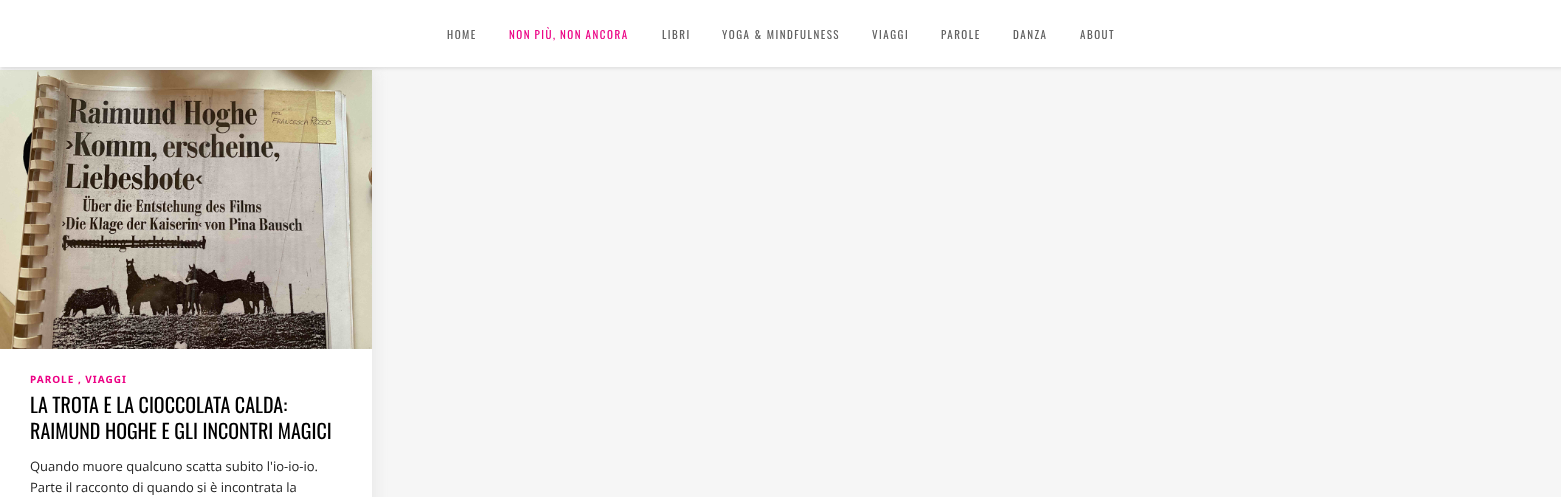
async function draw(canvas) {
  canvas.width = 1561
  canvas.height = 497
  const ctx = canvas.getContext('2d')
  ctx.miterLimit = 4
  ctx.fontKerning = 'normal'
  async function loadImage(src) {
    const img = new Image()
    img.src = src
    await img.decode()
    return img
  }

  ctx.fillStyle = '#f6f6f6'
  ctx.fillRect(0, 0, 1561, 497)
  ctx.fillStyle = '#e5e5e5'
  ctx.filter = 'blur(7.5px)'
  ctx.beginPath()
  ctx.rect(1, 72, 372, 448)
  ctx.fill()
  ctx.filter = 'none'
  ctx.drawImage(await loadImage('image0.png'), 0, 70, 372, 279)
  ctx.fillStyle = '#00000014'
  ctx.filter = 'blur(1.5px)'
  ctx.beginPath()
  ctx.rect(1, 2, 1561, 67)
  ctx.fill()
  ctx.filter = 'none'
  ctx.fillStyle = '#fff'
  ctx.fillRect(0, 0, 1561, 67)
  ctx.letterSpacing = '1.5px'
  ctx.font = '11px Oswald'
  ctx.fillStyle = '#606060'
  ctx.fillText('HOME', 447, 39)
  ctx.wordSpacing = '-0.5px'
  ctx.fillStyle = '#ec0084'
  ctx.fillText('NON PIÙ, NON ANCORA', 509, 39)
  ctx.wordSpacing = '0px'
  ctx.fillStyle = '#606060'
  ctx.fillText('LIBRI', 662, 39)
  ctx.fillText('YOGA & MINDFULNESS', 722, 39)
  ctx.fillText('VIAGGI', 872, 39)
  ctx.fillText('PAROLE', 941, 39)
  ctx.fillText('DANZA', 1013, 39)
  ctx.fillText('ABOUT', 1080, 39)
  ctx.fillStyle = '#fff'
  ctx.fillRect(0, 349, 372, 148)
  ctx.letterSpacing = '1px'
  ctx.font = 'bold 10px Noto Sans'
  ctx.fillStyle = '#ec0084'
  ctx.fillText('PAROLE , VIAGGI', 30, 383)
  ctx.letterSpacing = '0px'
  ctx.font = '20px Oswald'
  ctx.fillStyle = '#000'
  ctx.fillText('LA TROTA E LA CIOCCOLATA CALDA:', 30, 413)
  ctx.fillText('RAIMUND HOGHE E GLI INCONTRI MAGICI', 30, 439)
  ctx.font = '13px Open Sans'
  ctx.fillStyle = '#242424'
  ctx.fillText('Quando muore qualcuno scatta subito l\'io-io-io.', 30, 471)
  ctx.fillText('Parte il racconto di quando si è incontrata la', 30, 492)
}

draw(document.querySelector('canvas'))
